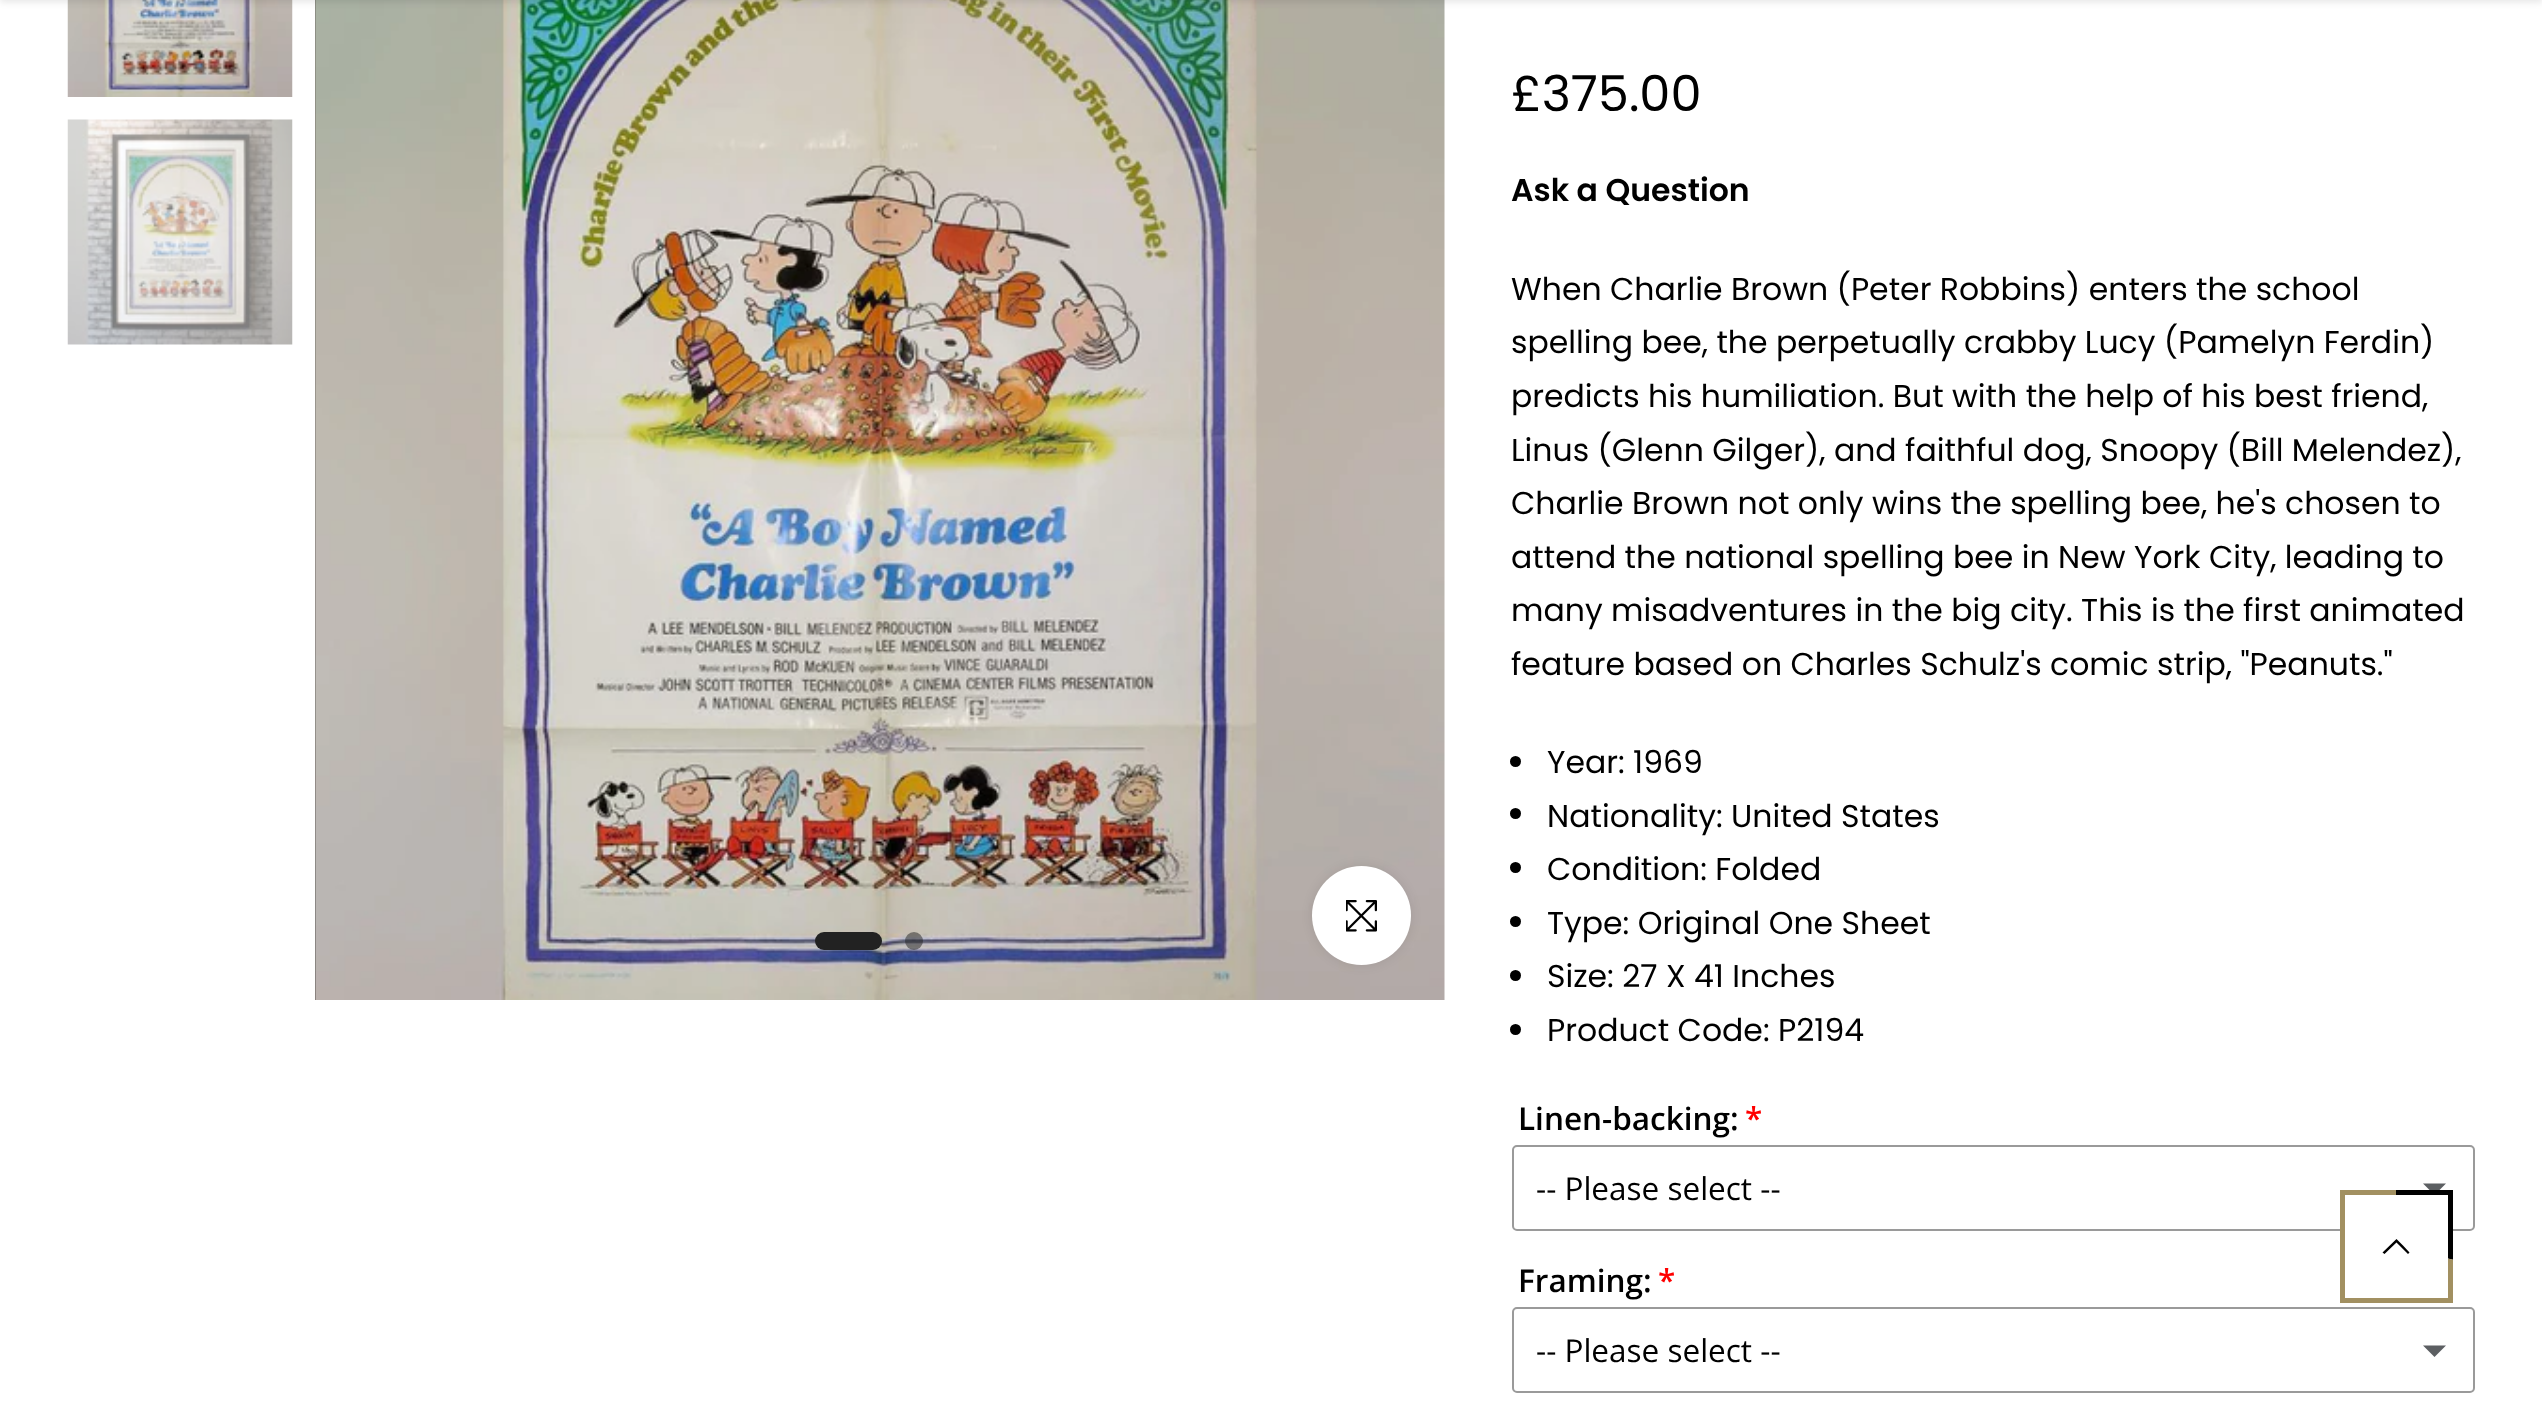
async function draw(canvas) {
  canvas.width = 2542
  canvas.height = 1426
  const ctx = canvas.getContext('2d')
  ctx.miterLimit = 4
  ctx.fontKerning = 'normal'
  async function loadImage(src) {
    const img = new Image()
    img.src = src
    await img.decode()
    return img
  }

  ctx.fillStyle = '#fff'
  ctx.fillRect(0, 0, 2542, 1426)
  ctx.drawImage(await loadImage('image0.png'), 67, 0, 226, 97)
  ctx.drawImage(await loadImage('image2.png'), 315, 0, 1130, 1000)
  ctx.drawImage(await loadImage('image3.png'), 315, 0, 1, 1000)
  ctx.fillStyle = '#0000001a'
  ctx.filter = 'blur(3.5px)'
  ctx.beginPath()
  ctx.rect(0, -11, 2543, 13)
  ctx.fill()
  ctx.filter = 'none'
  ctx.drawImage(await loadImage('image1.png'), 67, 119, 226, 226)
  ctx.fillStyle = '#222'
  ctx.beginPath()
  ctx.roundRect(815, 932, 67, 18, 9)
  ctx.fill()
  ctx.fillStyle = '#22222280'
  ctx.beginPath()
  ctx.arc(914, 941, 9, 0, 2 * Math.PI)
  ctx.fill()
  ctx.fillStyle = '#00000017'
  ctx.filter = 'blur(5.5px)'
  ctx.beginPath()
  ctx.roundRect(1312, 866, 99, 99, 49.5)
  ctx.fill()
  ctx.filter = 'none'
  ctx.fillStyle = '#fff'
  ctx.beginPath()
  ctx.arc(1361.5, 915.5, 49.5, 0, 2 * Math.PI)
  ctx.fill()
  ctx.drawImage(await loadImage('image4.png'), 1346, 900, 31, 32)
  ctx.font = '49.5px Poppins'
  ctx.fillStyle = '#000'
  ctx.fillText('£375.00', 1511, 111)
  ctx.font = '600 31.5px Poppins'
  ctx.fillText('Ask a Question', 1511, 201)
  ctx.font = '31.5px Poppins'
  ctx.fillText('When Charlie Brown (Peter Robbins) enters the school', 1511, 300)
  ctx.fillText('spelling bee, the perpetually crabby Lucy (Pamelyn Ferdin)', 1511, 353)
  ctx.fillText('predicts his humiliation. But with the help of his best friend,', 1511, 407)
  ctx.fillText('Linus (Glenn Gilger), and faithful dog, Snoopy (Bill Melendez),', 1511, 461)
  ctx.fillText('Charlie Brown not only wins the spelling bee, he\'s chosen to', 1511, 514)
  ctx.fillText('attend the national spelling bee in New York City, leading to', 1511, 568)
  ctx.fillText('many misadventures in the big city. This is the first animated', 1511, 621)
  ctx.fillText('feature based on Charles Schulz\'s comic strip, "Peanuts."', 1511, 675)
  ctx.beginPath()
  ctx.arc(1515.5, 761.5, 5.5, 0, 2 * Math.PI)
  ctx.fill()
  ctx.fillText('Year: 1969', 1547, 773)
  ctx.beginPath()
  ctx.arc(1515.5, 813.5, 5.5, 0, 2 * Math.PI)
  ctx.fill()
  ctx.fillText('Nationality: United States', 1547, 827)
  ctx.beginPath()
  ctx.arc(1515.5, 867.5, 5.5, 0, 2 * Math.PI)
  ctx.fill()
  ctx.fillText('Condition: Folded', 1547, 880)
  ctx.beginPath()
  ctx.arc(1515.5, 921.5, 5.5, 0, 2 * Math.PI)
  ctx.fill()
  ctx.fillText('Type: Original One Sheet', 1547, 934)
  ctx.beginPath()
  ctx.arc(1515.5, 975.5, 5.5, 0, 2 * Math.PI)
  ctx.fill()
  ctx.fillText('Size: 27 X 41 Inches', 1547, 987)
  ctx.beginPath()
  ctx.arc(1515.5, 1029.5, 5.5, 0, 2 * Math.PI)
  ctx.fill()
  ctx.fillText('Product Code: P2194', 1547, 1041)
  ctx.font = '600 31.5px Open Sans'
  ctx.fillText('Linen-backing:', 1518, 1130)
  ctx.fillStyle = '#f00'
  ctx.fillText('*', 1745, 1130)
  ctx.beginPath()
  ctx.roundRect(1513, 1146, 961, 84, 4)
  ctx.strokeStyle = '#9a9a9a'
  ctx.lineWidth = 2
  ctx.stroke()
  ctx.font = '31.5px Open Sans'
  ctx.fillStyle = '#000'
  ctx.fillText('-- Please select --', 1536, 1200)
  ctx.fillStyle = '#5c5f62'
  ctx.beginPath()
  ctx.moveTo(2423, 1183.5)
  ctx.lineTo(2446, 1183.5)
  ctx.lineTo(2434.5, 1195)
  ctx.closePath()
  ctx.fill()
  ctx.font = '600 31.5px Open Sans'
  ctx.fillStyle = '#000'
  ctx.fillText('Framing:', 1518, 1292)
  ctx.fillStyle = '#f00'
  ctx.fillText('*', 1658, 1292)
  ctx.beginPath()
  ctx.roundRect(1513, 1308, 961, 84, 4)
  ctx.stroke()
  ctx.font = '31.5px Open Sans'
  ctx.fillStyle = '#000'
  ctx.fillText('-- Please select --', 1536, 1362)
  ctx.fillStyle = '#5c5f62'
  ctx.beginPath()
  ctx.moveTo(2423, 1345.5)
  ctx.lineTo(2446, 1345.5)
  ctx.lineTo(2434.5, 1357)
  ctx.closePath()
  ctx.fill()
  ctx.save()
  ctx.beginPath()
  ctx.rect(2340, 1190, 113, 113)
  ctx.clip()
  ctx.fillStyle = '#000'
  ctx.beginPath()
  ctx.moveTo(2396, 1246)
  ctx.lineTo(2396, 1008)
  ctx.bezierCurveTo(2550, 1008, 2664, 1152, 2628, 1302)
  ctx.closePath()
  ctx.fill()
  ctx.fillStyle = '#a29061'
  ctx.beginPath()
  ctx.moveTo(2396, 1246)
  ctx.lineTo(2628, 1302)
  ctx.bezierCurveTo(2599, 1423, 2482, 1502, 2359, 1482)
  ctx.bezierCurveTo(2236, 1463, 2149, 1352, 2158, 1228)
  ctx.bezierCurveTo(2168, 1104, 2272, 1008, 2396, 1008)
  ctx.closePath()
  ctx.fill()
  ctx.restore()
  ctx.fillStyle = '#fff'
  ctx.fillRect(2345, 1195, 103, 103)
  ctx.fillStyle = '#000'
  ctx.beginPath()
  ctx.moveTo(2398, 1240.5)
  ctx.lineTo(2396.5, 1239)
  ctx.lineTo(2382.5, 1252.5)
  ctx.lineTo(2384.5, 1254)
  ctx.lineTo(2396.5, 1242.5)
  ctx.lineTo(2408, 1254)
  ctx.lineTo(2409.5, 1252.5)
  ctx.lineTo(2403, 1245.5)
  ctx.closePath()
  ctx.fill()
}

draw(document.querySelector('canvas'))
